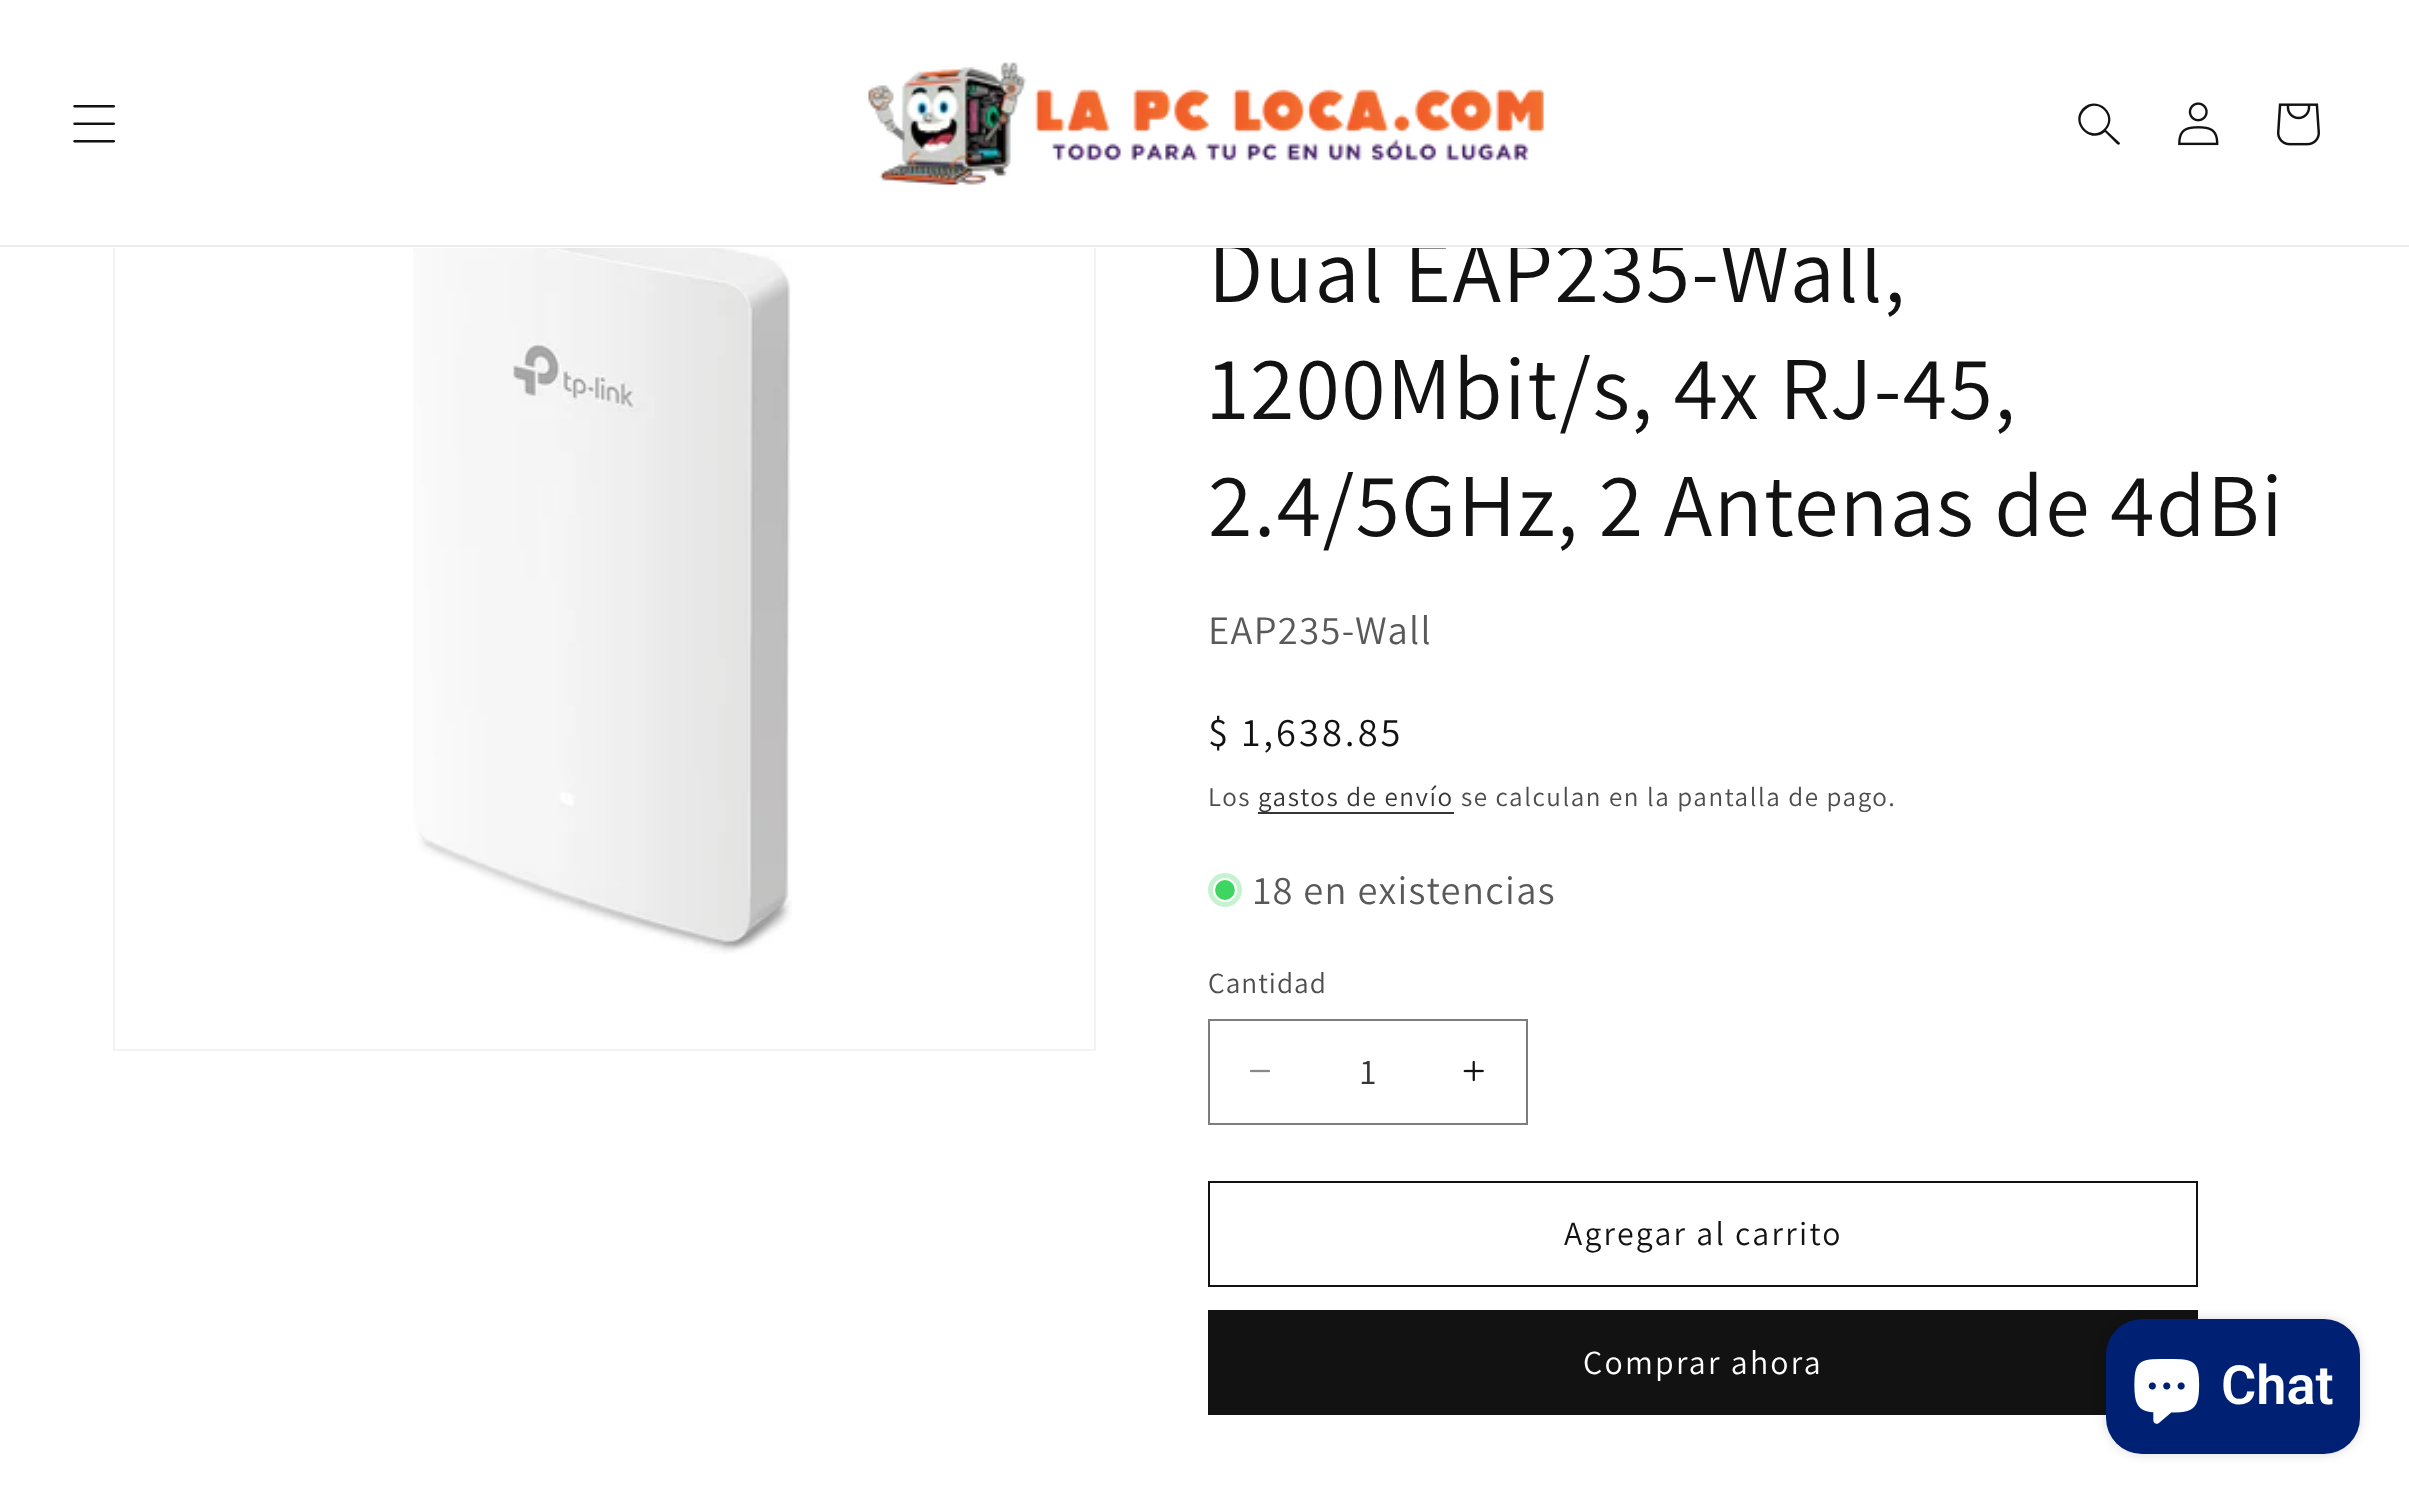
async function draw(canvas) {
  canvas.width = 2409
  canvas.height = 1500
  const ctx = canvas.getContext('2d')
  ctx.miterLimit = 4
  ctx.fontKerning = 'normal'
  async function loadImage(src) {
    const img = new Image()
    img.src = src
    await img.decode()
    return img
  }

  ctx.fillStyle = '#fff'
  ctx.fillRect(0, 0, 2409, 1500)
  ctx.strokeStyle = '#f3f3f3'
  ctx.lineWidth = 2
  ctx.strokeRect(114, 69, 981, 981)
  ctx.letterSpacing = '1.35px'
  ctx.font = '90px Assistant'
  ctx.fillStyle = '#121212'
  ctx.fillText('Dual EAP235-Wall,', 1208, 302)
  ctx.fillStyle = '#fff'
  ctx.fillRect(113, 68, 1762, 180)
  ctx.fillStyle = '#ececec'
  ctx.fillRect(0, 245, 2409, 2)
  ctx.drawImage(await loadImage('image0.png'), 73, 105, 42, 38)
  ctx.drawImage(await loadImage('image1.png'), 868, 62, 676, 123)
  ctx.fillStyle = '#121212'
  ctx.beginPath()
  ctx.moveTo(2104, 129)
  ctx.bezierCurveTo(2091, 142, 2072, 122, 2085, 110)
  ctx.bezierCurveTo(2097, 97, 2117, 116, 2104, 129)
  ctx.moveTo(2105, 132)
  ctx.bezierCurveTo(2089, 145, 2069, 122, 2083, 108)
  ctx.bezierCurveTo(2098, 94, 2120, 115, 2106, 130)
  ctx.lineTo(2120, 143)
  ctx.bezierCurveTo(2120, 145, 2118, 145, 2117, 144)
  ctx.closePath()
  ctx.fill('evenodd')
  ctx.drawImage(await loadImage('image2.png'), 2178, 102, 41, 44)
  ctx.drawImage(await loadImage('image3.png'), 2277, 103, 43, 43)
  ctx.drawImage(await loadImage('image4.png'), 413, 248, 379, 706)
  ctx.fillText('1200Mbit/s, 4x RJ-45,', 1208, 419)
  ctx.fillText('2.4/5GHz, 2 Antenas de 4dBi', 1208, 536)
  ctx.font = '40.5px Assistant'
  ctx.fillStyle = '#595959'
  ctx.fillText('EAP235-Wall', 1208, 644)
  ctx.letterSpacing = '3px'
  ctx.fillStyle = '#121212'
  ctx.fillText('$ 1,638.85', 1208, 746)
  ctx.letterSpacing = '1.55px'
  ctx.font = '27px Assistant'
  ctx.fillStyle = '#4d4d4d'
  ctx.fillText('Los', 1208, 806)
  ctx.fillStyle = '#363636'
  ctx.fillRect(1258, 812, 196, 2)
  ctx.fillText('gastos de envío', 1258, 806)
  ctx.fillStyle = '#4d4d4d'
  ctx.fillText('se calculan en la pantalla de pago.', 1461, 806)
  ctx.fillStyle = '#c5f3cf'
  ctx.beginPath()
  ctx.arc(1225, 890, 17, 0, 2 * Math.PI)
  ctx.fill()
  ctx.fillStyle = '#3ed660'
  ctx.beginPath()
  ctx.arc(1225, 890, 11, 0, 2 * Math.PI)
  ctx.fill()
  ctx.strokeStyle = '#fff'
  ctx.lineWidth = 2.2
  ctx.stroke()
  ctx.letterSpacing = '1.35px'
  ctx.font = '40.5px Assistant'
  ctx.fillStyle = '#595959'
  ctx.fillText('18 en existencias', 1253, 904)
  ctx.letterSpacing = '1px'
  ctx.font = '29.25px Assistant'
  ctx.fillStyle = '#4d4d4d'
  ctx.fillText('Cantidad', 1208, 993)
  ctx.drawImage(await loadImage('image5.png'), 1249, 1069, 21, 4)
  ctx.drawImage(await loadImage('image6.png'), 1463, 1060, 21, 22)
  ctx.strokeStyle = '#7d7d7d'
  ctx.lineWidth = 2
  ctx.strokeRect(1209, 1020, 318, 104)
  ctx.letterSpacing = '0px'
  ctx.font = '36px Assistant'
  ctx.fillStyle = '#363636'
  ctx.fillText('1', 1360, 1084)
  ctx.strokeStyle = '#121212'
  ctx.strokeRect(1209, 1182, 988, 104)
  ctx.letterSpacing = '2.25px'
  ctx.font = '33.75px Assistant'
  ctx.fillStyle = '#121212'
  ctx.fillText('Agregar al carrito', 1564, 1245)
  ctx.fillRect(1208, 1310, 990, 105)
  ctx.fillStyle = '#fff'
  ctx.fillText('Comprar ahora', 1583, 1374)
  ctx.fillStyle = '#00000026'
  ctx.filter = 'blur(5.5px)'
  ctx.beginPath()
  ctx.roundRect(2106, 1319, 254, 135, 36)
  ctx.fill()
  ctx.filter = 'none'
  ctx.fillStyle = '#002173'
  ctx.beginPath()
  ctx.roundRect(2106, 1319, 254, 135, 36)
  ctx.fill()
  ctx.drawImage(await loadImage('image7.png'), 2134, 1359, 66, 65)
  ctx.letterSpacing = '0px'
  ctx.font = '600 54px Roboto'
  ctx.fillStyle = '#fff'
  ctx.fillText('Chat', 2221, 1404)
}

draw(document.querySelector('canvas'))
